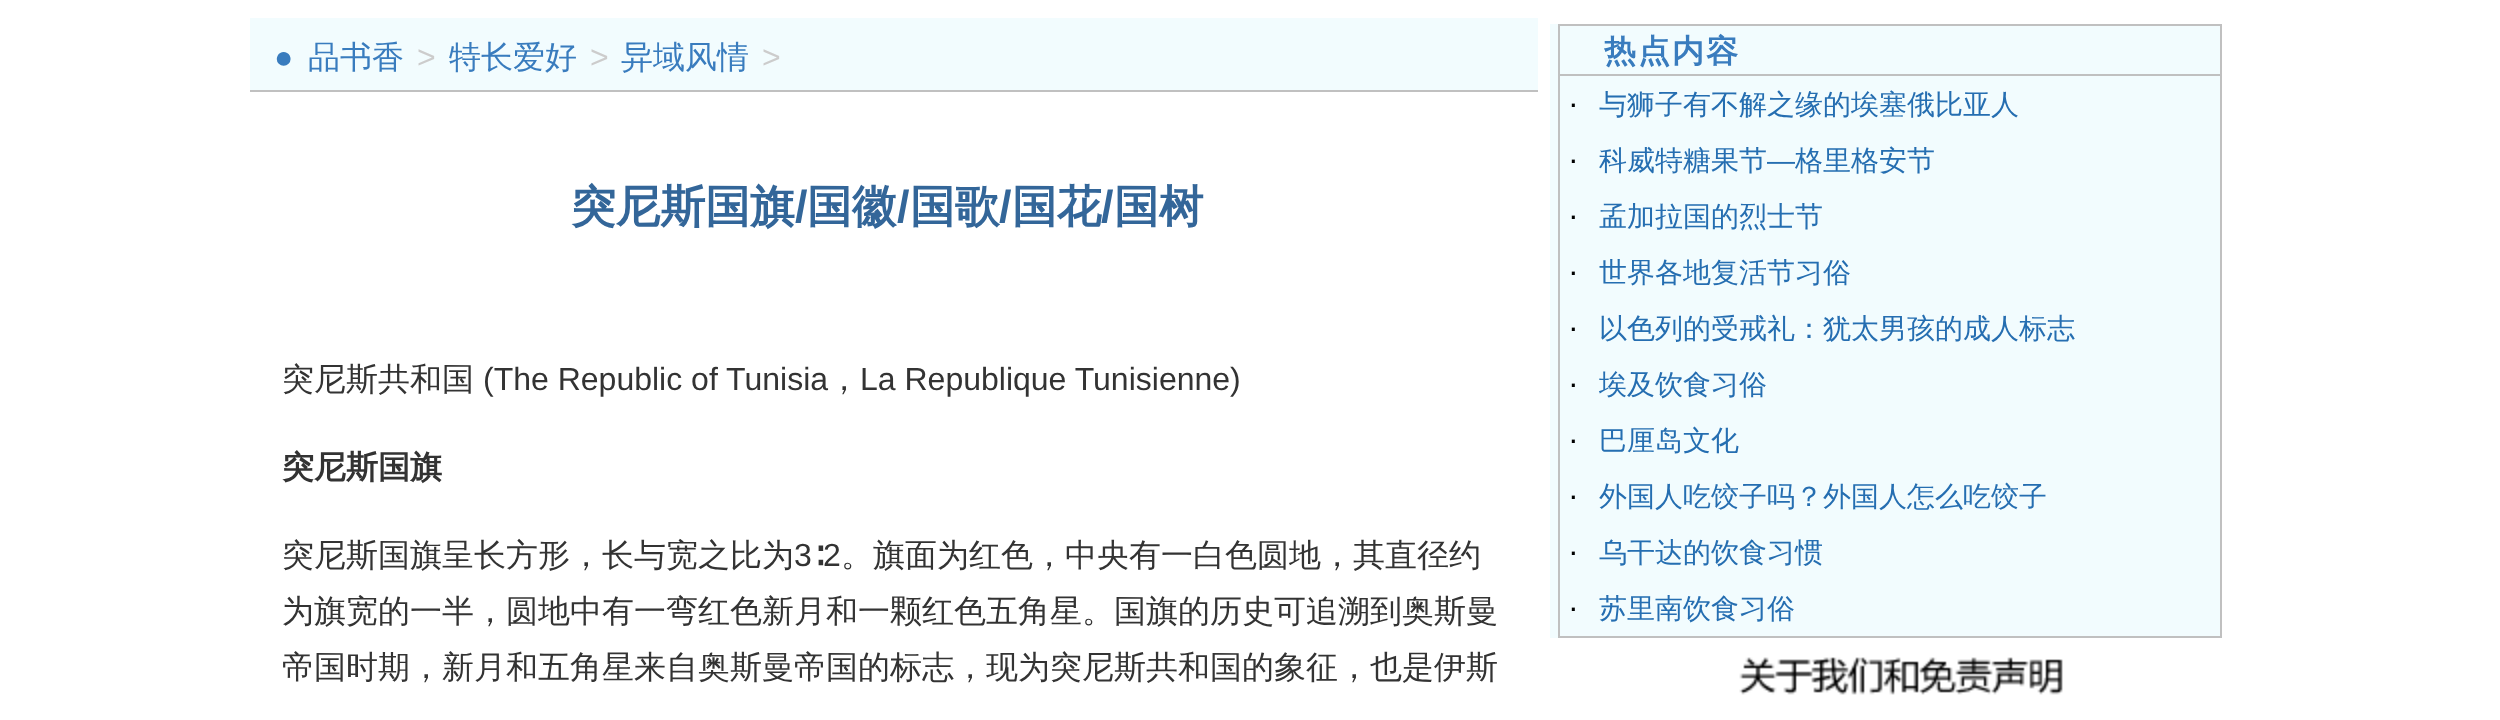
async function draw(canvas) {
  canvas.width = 2500
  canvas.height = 720
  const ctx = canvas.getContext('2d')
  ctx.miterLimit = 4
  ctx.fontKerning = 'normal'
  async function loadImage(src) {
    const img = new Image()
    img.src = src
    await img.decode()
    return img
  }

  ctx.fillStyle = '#fff'
  ctx.fillRect(0, 0, 2500, 720)
  ctx.fillStyle = '#f2fcfe'
  ctx.fillRect(250, 18, 1288, 72)
  ctx.fillStyle = '#c0c0c0'
  ctx.fillRect(250, 90, 1288, 2)
  ctx.letterSpacing = '2px'
  ctx.font = '32px Liberation Sans'
  ctx.fillStyle = '#397cbe'
  ctx.fillText('●', 274, 68)
  ctx.letterSpacing = '0px'
  ctx.font = '500 32px WenQuanYi Zen Hei'
  ctx.fillText('品书香', 308, 68)
  ctx.font = '32px Liberation Sans'
  ctx.fillStyle = '#ccc'
  ctx.fillText('>', 417, 68)
  ctx.font = '500 32px WenQuanYi Zen Hei'
  ctx.fillStyle = '#397cbe'
  ctx.fillText('特长爱好', 449, 68)
  ctx.font = '32px Liberation Sans'
  ctx.fillStyle = '#ccc'
  ctx.fillText('>', 590, 68)
  ctx.font = '500 32px WenQuanYi Zen Hei'
  ctx.fillStyle = '#397cbe'
  ctx.fillText('异域风情', 621, 68)
  ctx.font = '32px Liberation Sans'
  ctx.fillStyle = '#ccc'
  ctx.fillText('>', 762, 68)
  ctx.font = 'bold 44.75px WenQuanYi Zen Hei'
  ctx.fillStyle = '#369'
  ctx.fillText('突尼斯国旗', 571, 222)
  ctx.font = 'bold 44.75px Liberation Sans'
  ctx.fillText('/', 795, 222)
  ctx.font = 'bold 44.75px WenQuanYi Zen Hei'
  ctx.fillText('国徽', 807, 222)
  ctx.font = 'bold 44.75px Liberation Sans'
  ctx.fillText('/', 897, 222)
  ctx.font = 'bold 44.75px WenQuanYi Zen Hei'
  ctx.fillText('国歌', 910, 222)
  ctx.font = 'bold 44.75px Liberation Sans'
  ctx.fillText('/', 999, 222)
  ctx.font = 'bold 44.75px WenQuanYi Zen Hei'
  ctx.fillText('国花', 1012, 222)
  ctx.font = 'bold 44.75px Liberation Sans'
  ctx.fillText('/', 1101, 222)
  ctx.font = 'bold 44.75px WenQuanYi Zen Hei'
  ctx.fillText('国树', 1114, 222)
  ctx.font = '500 32px WenQuanYi Zen Hei'
  ctx.fillStyle = '#333'
  ctx.fillText('突尼斯共和国', 282, 390)
  ctx.font = '32px Liberation Sans'
  ctx.fillText('(The Republic of Tunisia', 483, 390)
  ctx.font = '500 32px WenQuanYi Zen Hei'
  ctx.fillText('，', 828, 390)
  ctx.font = '32px Liberation Sans'
  ctx.fillText('La Republique Tunisienne)', 860, 390)
  ctx.font = 'bold 32px WenQuanYi Zen Hei'
  ctx.fillText('突尼斯国旗', 282, 478)
  ctx.font = '500 32px WenQuanYi Zen Hei'
  ctx.fillText('突尼斯国旗呈长方形，长与宽之比为', 282, 566)
  ctx.font = '32px Liberation Sans'
  ctx.fillText('3', 794, 566)
  ctx.font = '500 32px WenQuanYi Zen Hei'
  ctx.fillText('∶', 812, 566)
  ctx.font = '32px Liberation Sans'
  ctx.fillText('2', 823, 566)
  ctx.font = '500 32px WenQuanYi Zen Hei'
  ctx.fillText('。旗面为红色，中央有一白色圆地，其直径约', 841, 566)
  ctx.fillText('为旗宽的一半，圆地中有一弯红色新月和一颗红色五角星。国旗的历史可追溯到奥斯曼', 282, 622)
  ctx.fillText('帝国时期，新月和五角星来自奥斯曼帝国的标志，现为突尼斯共和国的象征，也是伊斯', 282, 678)
  ctx.fillStyle = '#f2fcfe'
  ctx.fillRect(1550, 24, 670, 614)
  ctx.strokeStyle = '#c0c0c0'
  ctx.lineWidth = 2
  ctx.strokeRect(1559, 25, 662, 50)
  ctx.letterSpacing = '2px'
  ctx.font = 'bold 32px WenQuanYi Zen Hei'
  ctx.fillStyle = '#397cbe'
  ctx.fillText('热点内容', 1604, 62)
  ctx.fillStyle = '#c0c0c0'
  ctx.fillRect(2220, 76, 2, 562)
  ctx.fillRect(1558, 636, 664, 2)
  ctx.fillRect(1558, 76, 2, 562)
  ctx.letterSpacing = '0px'
  ctx.font = '32px Liberation Sans'
  ctx.fillStyle = '#000'
  ctx.fillText('·', 1568, 114)
  ctx.font = '500 28px WenQuanYi Zen Hei'
  ctx.fillStyle = '#256eb1'
  ctx.fillText('与狮子有不解之缘的埃塞俄比亚人', 1599, 114)
  ctx.font = '32px Liberation Sans'
  ctx.fillStyle = '#000'
  ctx.fillText('·', 1568, 170)
  ctx.font = '500 28px WenQuanYi Zen Hei'
  ctx.fillStyle = '#256eb1'
  ctx.fillText('科威特糖果节', 1599, 170)
  ctx.font = '28px Liberation Sans'
  ctx.fillText('—', 1767, 170)
  ctx.font = '500 28px WenQuanYi Zen Hei'
  ctx.fillText('格里格安节', 1795, 170)
  ctx.font = '32px Liberation Sans'
  ctx.fillStyle = '#000'
  ctx.fillText('·', 1568, 226)
  ctx.font = '500 28px WenQuanYi Zen Hei'
  ctx.fillStyle = '#256eb1'
  ctx.fillText('孟加拉国的烈士节', 1599, 226)
  ctx.font = '32px Liberation Sans'
  ctx.fillStyle = '#000'
  ctx.fillText('·', 1568, 282)
  ctx.font = '500 28px WenQuanYi Zen Hei'
  ctx.fillStyle = '#256eb1'
  ctx.fillText('世界各地复活节习俗', 1599, 282)
  ctx.font = '32px Liberation Sans'
  ctx.fillStyle = '#000'
  ctx.fillText('·', 1568, 338)
  ctx.font = '500 28px WenQuanYi Zen Hei'
  ctx.fillStyle = '#256eb1'
  ctx.fillText('以色列的受戒礼：犹太男孩的成人标志', 1599, 338)
  ctx.font = '32px Liberation Sans'
  ctx.fillStyle = '#000'
  ctx.fillText('·', 1568, 394)
  ctx.font = '500 28px WenQuanYi Zen Hei'
  ctx.fillStyle = '#256eb1'
  ctx.fillText('埃及饮食习俗', 1599, 394)
  ctx.font = '32px Liberation Sans'
  ctx.fillStyle = '#000'
  ctx.fillText('·', 1568, 450)
  ctx.font = '500 28px WenQuanYi Zen Hei'
  ctx.fillStyle = '#256eb1'
  ctx.fillText('巴厘岛文化', 1599, 450)
  ctx.font = '32px Liberation Sans'
  ctx.fillStyle = '#000'
  ctx.fillText('·', 1568, 506)
  ctx.font = '500 28px WenQuanYi Zen Hei'
  ctx.fillStyle = '#256eb1'
  ctx.fillText('外国人吃饺子吗？外国人怎么吃饺子', 1599, 506)
  ctx.font = '32px Liberation Sans'
  ctx.fillStyle = '#000'
  ctx.fillText('·', 1568, 562)
  ctx.font = '500 28px WenQuanYi Zen Hei'
  ctx.fillStyle = '#256eb1'
  ctx.fillText('乌干达的饮食习惯', 1599, 562)
  ctx.font = '32px Liberation Sans'
  ctx.fillStyle = '#000'
  ctx.fillText('·', 1568, 618)
  ctx.font = '500 28px WenQuanYi Zen Hei'
  ctx.fillStyle = '#256eb1'
  ctx.fillText('苏里南饮食习俗', 1599, 618)
  ctx.drawImage(await loadImage('image0.png'), 1739, 657, 324, 38)
}

draw(document.querySelector('canvas'))
